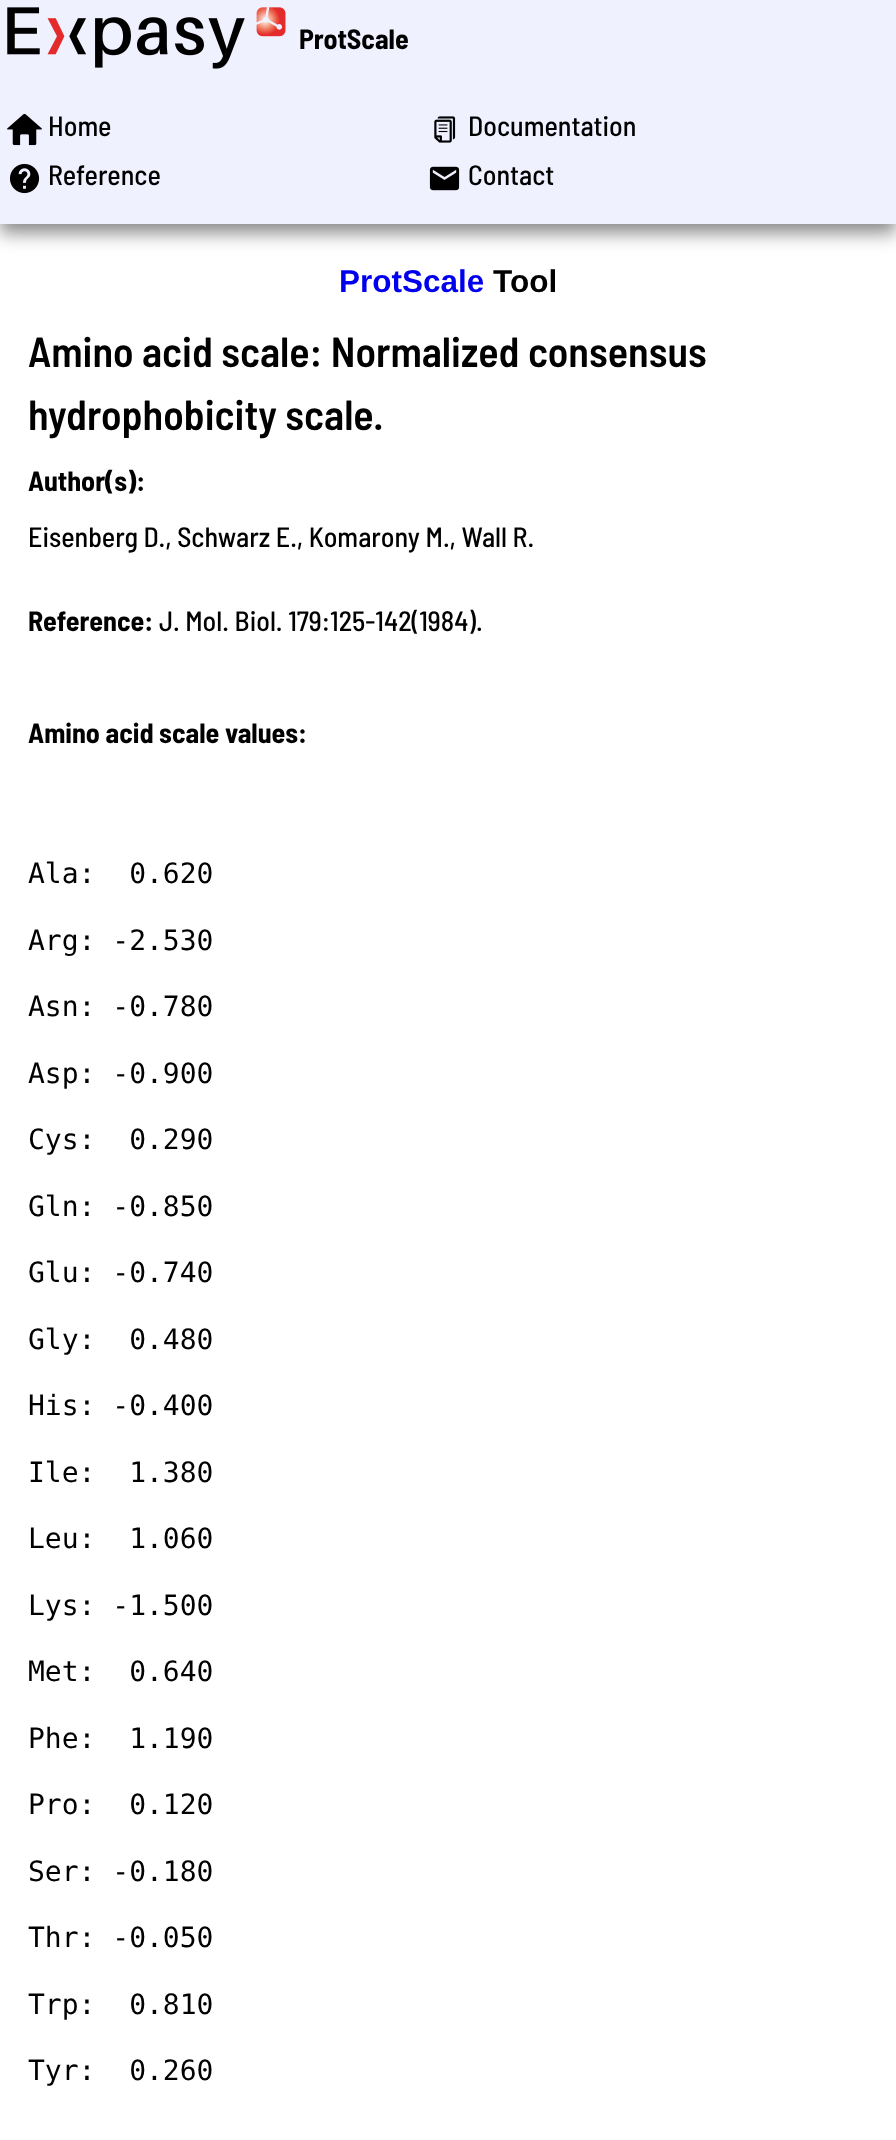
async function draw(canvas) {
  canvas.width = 896
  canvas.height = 2140
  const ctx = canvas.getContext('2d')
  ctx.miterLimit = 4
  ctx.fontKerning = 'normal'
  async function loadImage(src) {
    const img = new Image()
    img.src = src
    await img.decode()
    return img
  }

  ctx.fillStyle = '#fff'
  ctx.fillRect(0, 0, 896, 2140)
  ctx.fillStyle = '#888'
  ctx.filter = 'blur(9px)'
  ctx.beginPath()
  ctx.rect(0, 9, 896, 224)
  ctx.fill()
  ctx.filter = 'none'
  ctx.fillStyle = '#f0f1ff'
  ctx.fillRect(0, 0, 896, 224)
  ctx.drawImage(await loadImage('image0.png'), 7, 7, 279, 62)
  ctx.font = 'bold 28px Barlow Semi Condensed'
  ctx.fillStyle = '#000'
  ctx.fillText('ProtScale', 299, 49)
  ctx.drawImage(await loadImage('image1.png'), 7, 114, 35, 32)
  ctx.font = '500 28px Barlow Semi Condensed'
  ctx.fillText('Home', 48, 136)
  ctx.drawImage(await loadImage('image2.png'), 434, 116, 22, 27)
  ctx.fillText('Documentation', 468, 136)
  ctx.drawImage(await loadImage('image3.png'), 9, 163, 31, 31)
  ctx.fillText('Reference', 48, 185)
  ctx.drawImage(await loadImage('image4.png'), 429, 166, 31, 25)
  ctx.fillText('Contact', 468, 185)
  ctx.font = 'bold 31.5px Liberation Sans'
  ctx.fillStyle = '#00e'
  ctx.fillText('ProtScale', 339, 292)
  ctx.fillStyle = '#000'
  ctx.fillText('Tool', 493, 292)
  ctx.font = '600 42px Barlow Semi Condensed'
  ctx.fillText('Amino acid scale: Normalized consensus', 28, 367)
  ctx.fillText('hydrophobicity scale.', 28, 430)
  ctx.font = 'bold 28px Barlow Semi Condensed'
  ctx.fillText('Author(s):', 28, 491)
  ctx.font = '500 28px Barlow Semi Condensed'
  ctx.fillText('Eisenberg D., Schwarz E., Komarony M., Wall R.', 28, 547)
  ctx.font = 'bold 28px Barlow Semi Condensed'
  ctx.fillText('Reference:', 28, 631)
  ctx.font = '500 28px Barlow Semi Condensed'
  ctx.fillText('J. Mol. Biol. 179:125-142(1984).', 159, 631)
  ctx.font = 'bold 28px Barlow Semi Condensed'
  ctx.fillText('Amino acid scale values:', 28, 743)
  ctx.font = '28px DejaVu Sans Mono'
  ctx.fillText('Ala:  0.620', 28, 883)
  ctx.fillText('Arg: -2.530', 28, 950)
  ctx.fillText('Asn: -0.780', 28, 1016)
  ctx.fillText('Asp: -0.900', 28, 1083)
  ctx.fillText('Cys:  0.290', 28, 1149)
  ctx.fillText('Gln: -0.850', 28, 1216)
  ctx.fillText('Glu: -0.740', 28, 1282)
  ctx.fillText('Gly:  0.480', 28, 1349)
  ctx.fillText('His: -0.400', 28, 1415)
  ctx.fillText('Ile:  1.380', 28, 1482)
  ctx.fillText('Leu:  1.060', 28, 1548)
  ctx.fillText('Lys: -1.500', 28, 1615)
  ctx.fillText('Met:  0.640', 28, 1681)
  ctx.fillText('Phe:  1.190', 28, 1748)
  ctx.fillText('Pro:  0.120', 28, 1814)
  ctx.fillText('Ser: -0.180', 28, 1881)
  ctx.fillText('Thr: -0.050', 28, 1947)
  ctx.fillText('Trp:  0.810', 28, 2014)
  ctx.fillText('Tyr:  0.260', 28, 2080)
}

draw(document.querySelector('canvas'))
